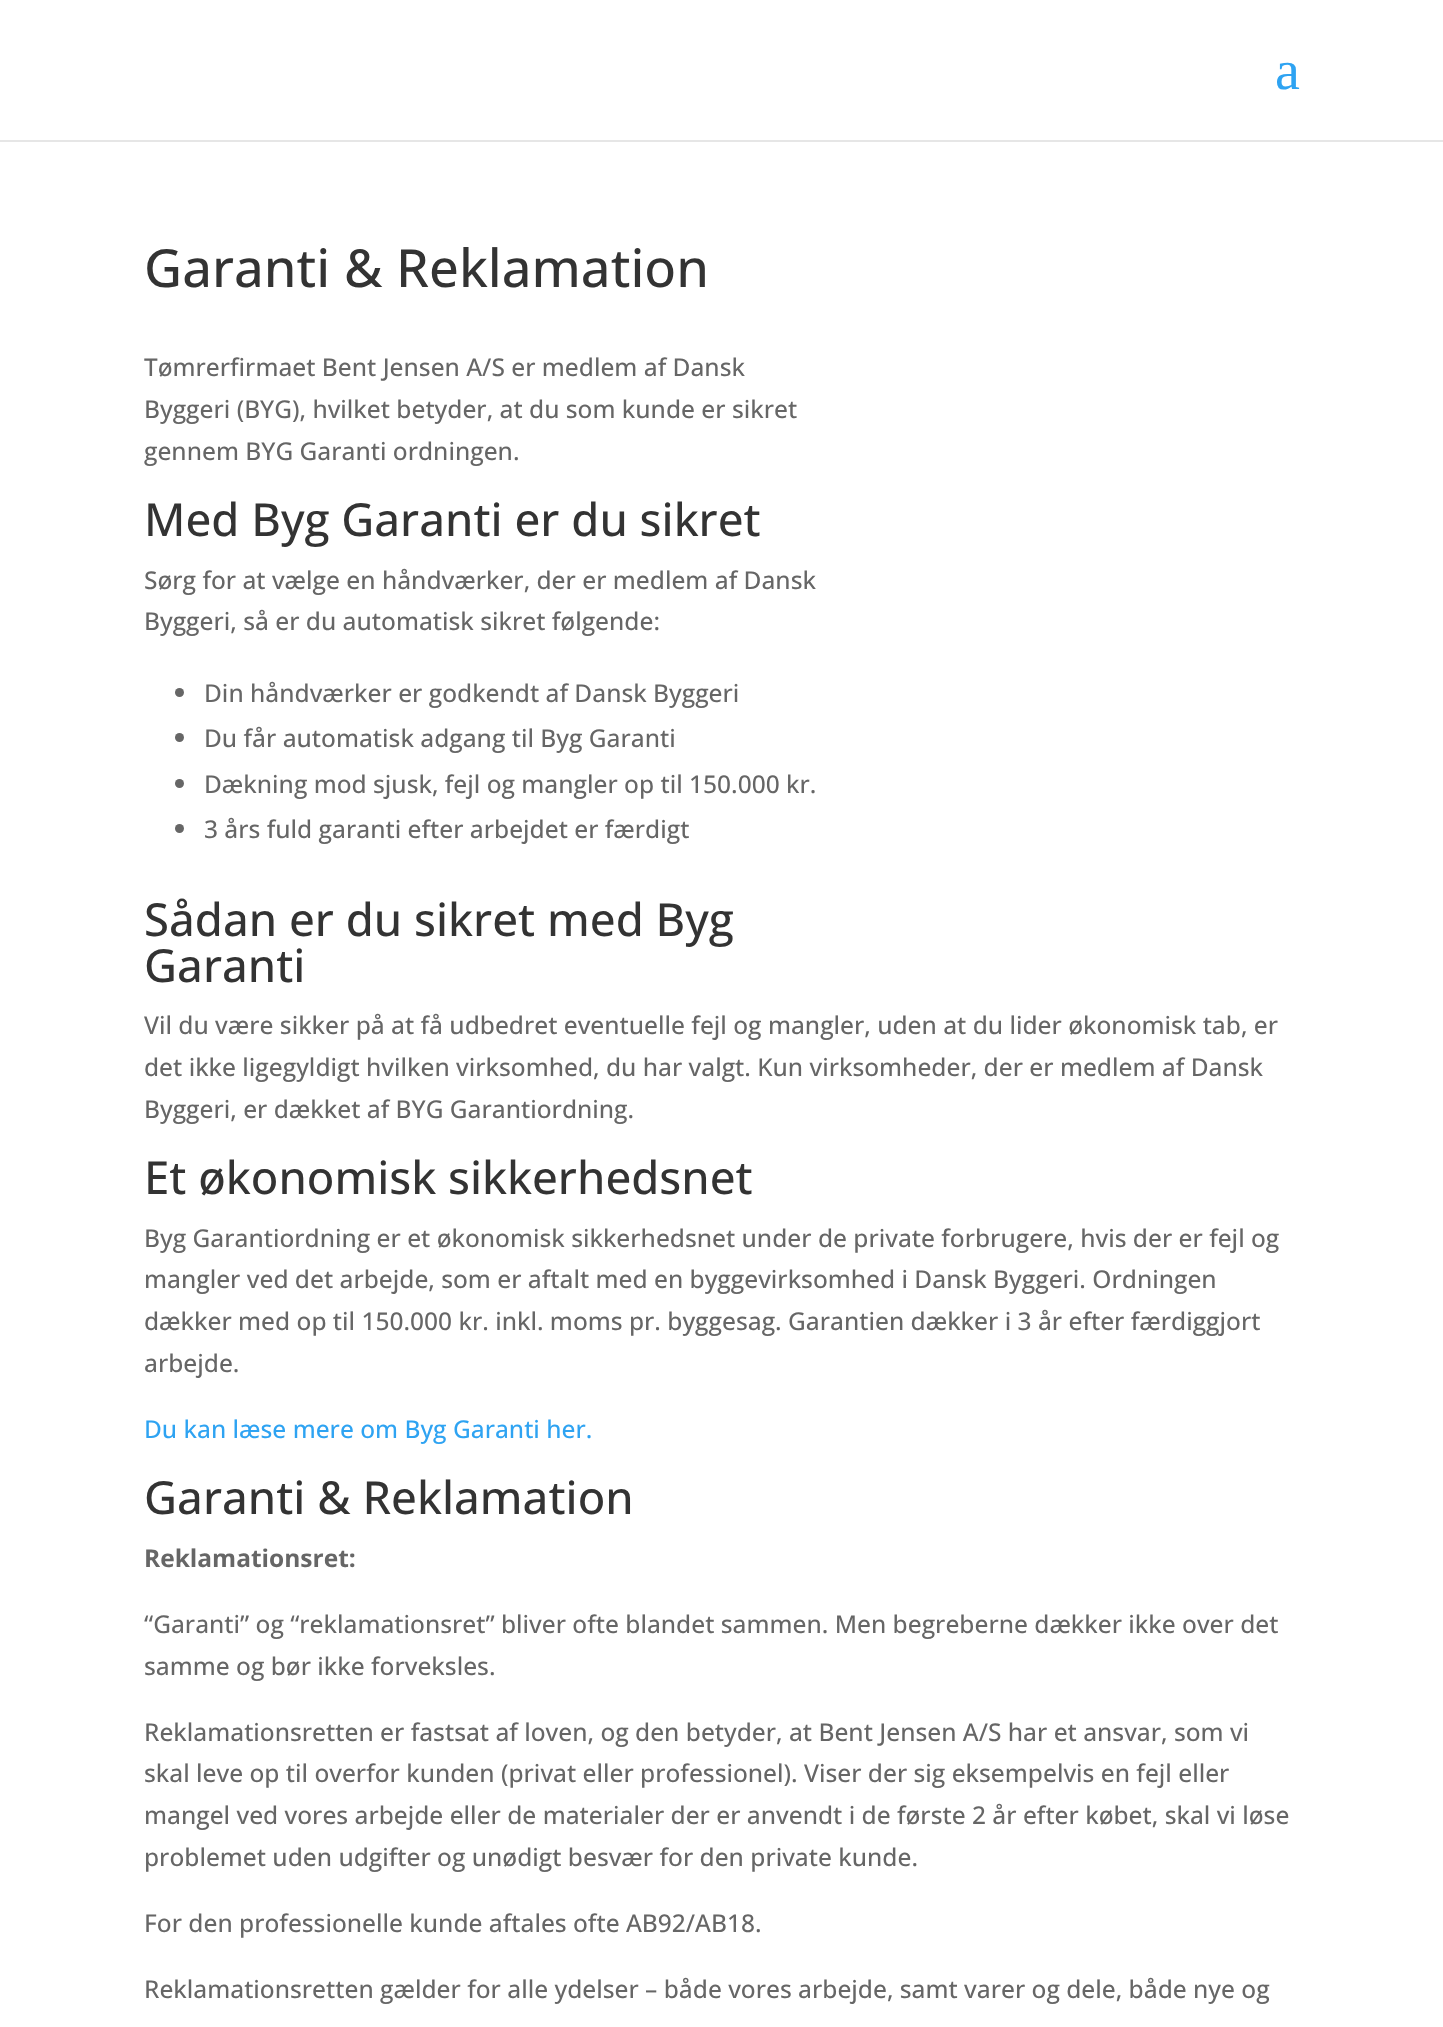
async function draw(canvas) {
  canvas.width = 1443
  canvas.height = 2027
  const ctx = canvas.getContext('2d')
  ctx.miterLimit = 4
  ctx.fontKerning = 'normal'

  ctx.fillStyle = '#fff'
  ctx.fillRect(0, 0, 1443, 2027)
  ctx.fillStyle = '#e6e6e6'
  ctx.beginPath()
  ctx.moveTo(0, 140)
  ctx.lineTo(0, 142)
  ctx.lineTo(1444, 142)
  ctx.lineTo(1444, 2)
  ctx.lineTo(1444, 140)
  ctx.closePath()
  ctx.fill()
  ctx.font = '56px Liberation Serif'
  ctx.fillStyle = '#2ea3f2'
  ctx.fillText('a', 1275, 89)
  ctx.font = '500 52.5px Open Sans'
  ctx.fillStyle = '#333'
  ctx.fillText('Garanti & Reklamation', 144, 287)
  ctx.font = '500 24.5px Open Sans'
  ctx.fillStyle = '#666'
  ctx.fillText('Tømrerfirmaet Bent Jensen A/S er medlem af Dansk', 144, 376)
  ctx.fillText('Byggeri (BYG), hvilket betyder, at du som kunde er sikret', 144, 418)
  ctx.fillText('gennem BYG Garanti ordningen.', 144, 460)
  ctx.font = '500 45.5px Open Sans'
  ctx.fillStyle = '#333'
  ctx.fillText('Med Byg Garanti er du sikret', 144, 536)
  ctx.font = '500 24.5px Open Sans'
  ctx.fillStyle = '#666'
  ctx.fillText('Sørg for at vælge en håndværker, der er medlem af Dansk', 144, 589)
  ctx.fillText('Byggeri, så er du automatisk sikret følgende:', 144, 630)
  ctx.beginPath()
  ctx.arc(179.5, 692.5, 4.5, 0, 2 * Math.PI)
  ctx.fill()
  ctx.fillText('Din håndværker er godkendt af Dansk Byggeri', 204, 702)
  ctx.beginPath()
  ctx.arc(179.5, 737.5, 4.5, 0, 2 * Math.PI)
  ctx.fill()
  ctx.fillText('Du får automatisk adgang til Byg Garanti', 204, 747)
  ctx.beginPath()
  ctx.arc(179.5, 783.5, 4.5, 0, 2 * Math.PI)
  ctx.fill()
  ctx.fillText('Dækning mod sjusk, fejl og mangler op til 150.000 kr.', 204, 793)
  ctx.beginPath()
  ctx.arc(179.5, 828.5, 4.5, 0, 2 * Math.PI)
  ctx.fill()
  ctx.fillText('3 års fuld garanti efter arbejdet er færdigt', 204, 838)
  ctx.font = '500 45.5px Open Sans'
  ctx.fillStyle = '#333'
  ctx.fillText('Sådan er du sikret med Byg', 144, 936)
  ctx.fillText('Garanti', 144, 982)
  ctx.font = '500 24.5px Open Sans'
  ctx.fillStyle = '#666'
  ctx.fillText('Vil du være sikker på at få udbedret eventuelle fejl og mangler, uden at du lider økonomisk tab, er', 144, 1034)
  ctx.fillText('det ikke ligegyldigt hvilken virksomhed, du har valgt. Kun virksomheder, der er medlem af Dansk', 144, 1076)
  ctx.fillText('Byggeri, er dækket af BYG Garantiordning.', 144, 1118)
  ctx.font = '500 45.5px Open Sans'
  ctx.fillStyle = '#333'
  ctx.fillText('Et økonomisk sikkerhedsnet', 144, 1194)
  ctx.font = '500 24.5px Open Sans'
  ctx.fillStyle = '#666'
  ctx.fillText('Byg Garantiordning er et økonomisk sikkerhedsnet under de private forbrugere, hvis der er fejl og', 144, 1247)
  ctx.fillText('mangler ved det arbejde, som er aftalt med en byggevirksomhed i Dansk Byggeri. Ordningen', 144, 1288)
  ctx.fillText('dækker med op til 150.000 kr. inkl. moms pr. byggesag. Garantien dækker i 3 år efter færdiggjort', 144, 1330)
  ctx.fillText('arbejde.', 144, 1372)
  ctx.fillStyle = '#2ea3f2'
  ctx.fillText('Du kan læse mere om Byg Garanti her.', 144, 1438)
  ctx.font = '500 45.5px Open Sans'
  ctx.fillStyle = '#333'
  ctx.fillText('Garanti & Reklamation', 144, 1514)
  ctx.font = 'bold 24.5px Open Sans'
  ctx.fillStyle = '#666'
  ctx.fillText('Reklamationsret:', 144, 1567)
  ctx.font = '500 24.5px Open Sans'
  ctx.fillText('“Garanti” og “reklamationsret” bliver ofte blandet sammen. Men begreberne dækker ikke over det', 144, 1633)
  ctx.fillText('samme og bør ikke forveksles.', 144, 1675)
  ctx.fillText('Reklamationsretten er fastsat af loven, og den betyder, at Bent Jensen A/S har et ansvar, som vi', 144, 1741)
  ctx.fillText('skal leve op til overfor kunden (privat eller professionel). Viser der sig eksempelvis en fejl eller', 144, 1782)
  ctx.fillText('mangel ved vores arbejde eller de materialer der er anvendt i de første 2 år efter købet, skal vi løse', 144, 1824)
  ctx.fillText('problemet uden udgifter og unødigt besvær for den private kunde.', 144, 1866)
  ctx.fillText('For den professionelle kunde aftales ofte AB92/AB18.', 144, 1932)
  ctx.fillText('Reklamationsretten gælder for alle ydelser – både vores arbejde, samt varer og dele, både nye og', 144, 1998)
}

draw(document.querySelector('canvas'))
